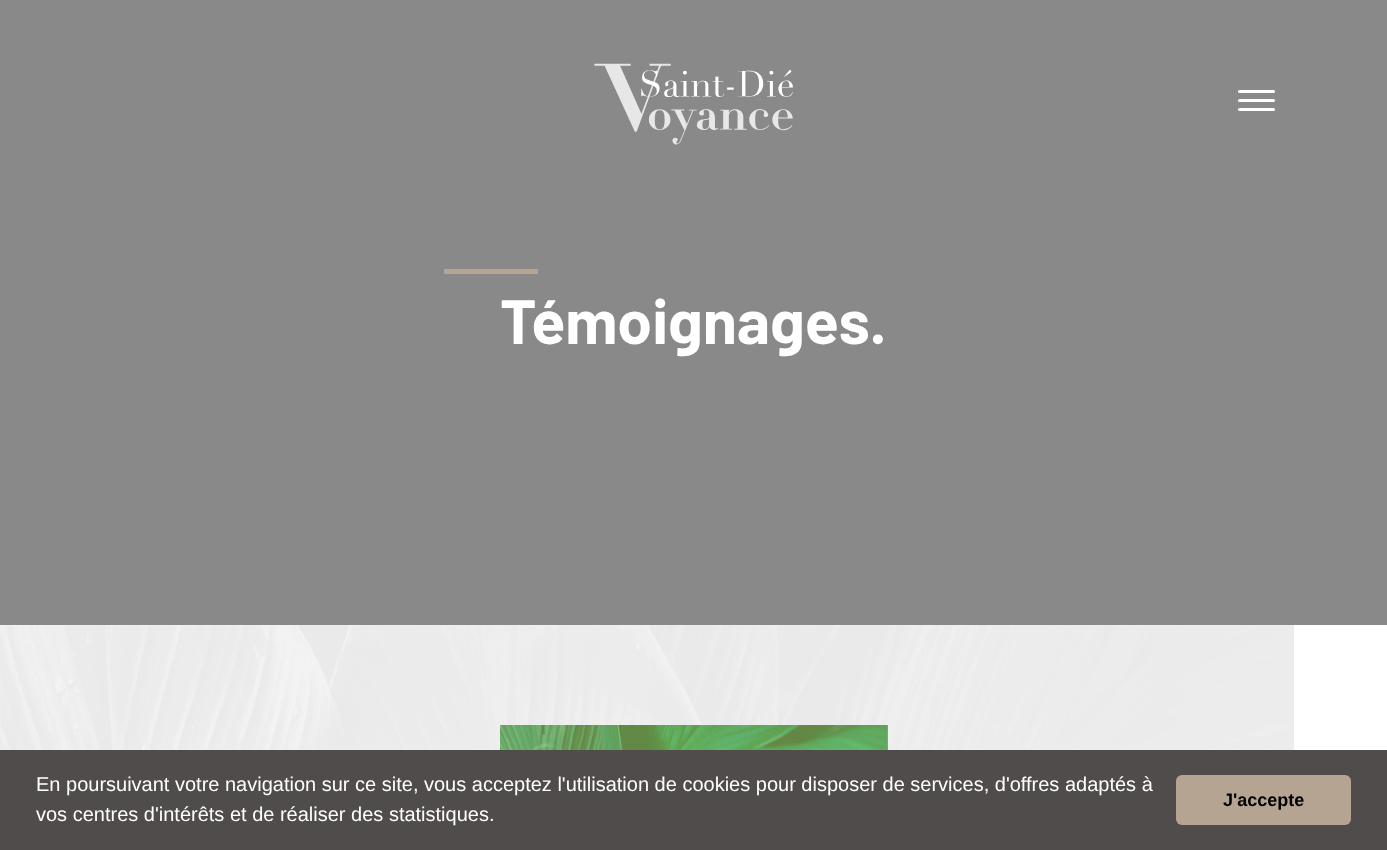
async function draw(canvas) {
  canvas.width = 1387
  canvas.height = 850
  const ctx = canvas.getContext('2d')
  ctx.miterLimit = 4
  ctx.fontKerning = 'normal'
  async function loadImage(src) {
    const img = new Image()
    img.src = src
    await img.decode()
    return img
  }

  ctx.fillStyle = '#fff'
  ctx.fillRect(0, 0, 1387, 850)
  ctx.fillStyle = '#898989'
  ctx.fillRect(0, 0, 1387, 625)
  ctx.drawImage(await loadImage('image0.png'), 594, 63, 199, 82)
  ctx.fillStyle = '#fff'
  ctx.beginPath()
  ctx.roundRect(1238, 90, 37, 3, 1.5)
  ctx.fill()
  ctx.beginPath()
  ctx.roundRect(1238, 99, 37, 3, 1.5)
  ctx.fill()
  ctx.beginPath()
  ctx.roundRect(1238, 108, 37, 3, 1.5)
  ctx.fill()
  ctx.fillStyle = '#b5a491'
  ctx.fillRect(444, 269, 94, 5)
  ctx.font = 'bold 62.5px Barlow'
  ctx.fillStyle = '#fff'
  ctx.fillText('Témoignages.', 500, 344)
  ctx.drawImage(await loadImage('image1.png'), 0, 625, 1294, 125)
  ctx.fillStyle = '#8aba57'
  ctx.fillRect(887, 725, 1, 25)
  ctx.drawImage(await loadImage('image2.png'), 500, 725, 388, 25)
  ctx.fillStyle = '#504c4c'
  ctx.fillRect(0, 750, 1387, 100)
  ctx.font = '20px Liberation Sans'
  ctx.fillStyle = '#fff'
  ctx.fillText('En poursuivant votre navigation sur ce site, vous acceptez l\'utilisation de cookies pour disposer de services, d\'offres adaptés à', 36, 791)
  ctx.fillText('vos centres d\'intérêts et de réaliser des statistiques.', 36, 821)
  ctx.fillStyle = '#b5a491'
  ctx.beginPath()
  ctx.roundRect(1176, 775, 175, 50, 6)
  ctx.fill()
  ctx.font = 'bold 18px Liberation Sans'
  ctx.fillStyle = '#000'
  ctx.fillText('J\'accepte', 1223, 806)
}

draw(document.querySelector('canvas'))
